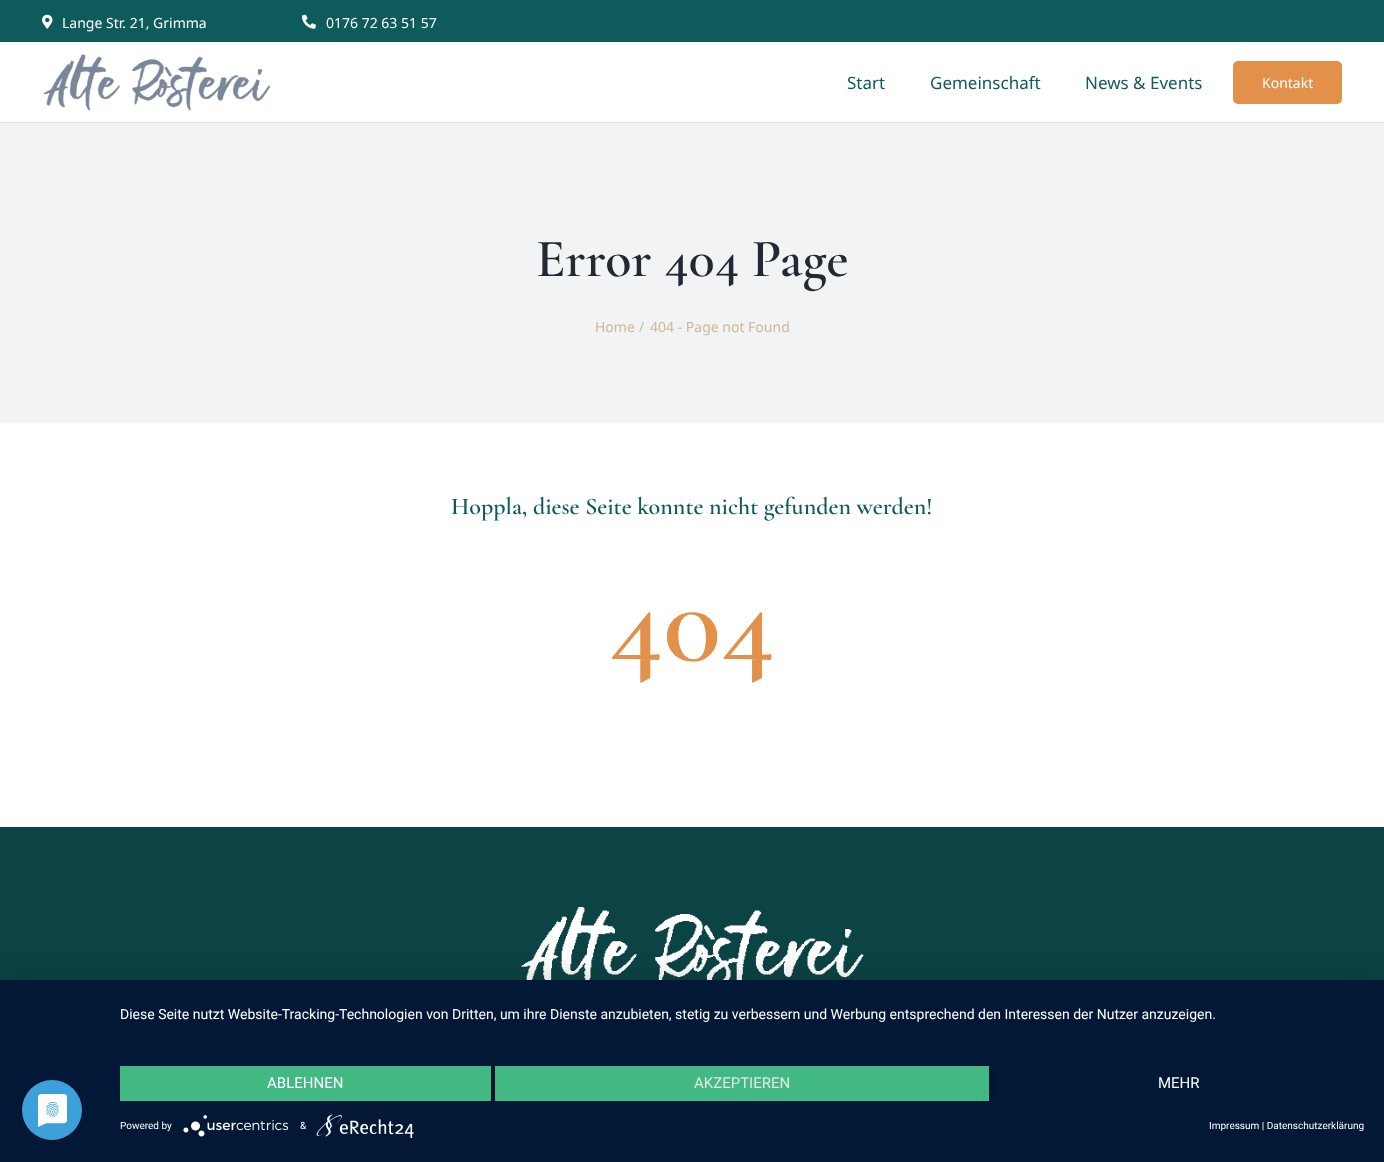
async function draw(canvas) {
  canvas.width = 1384
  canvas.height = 1162
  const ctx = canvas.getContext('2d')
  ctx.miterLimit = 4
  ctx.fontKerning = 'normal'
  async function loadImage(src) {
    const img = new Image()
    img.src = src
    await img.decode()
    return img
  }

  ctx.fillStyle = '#fff'
  ctx.fillRect(0, 0, 1384, 1162)
  ctx.fillStyle = '#0e5b5c'
  ctx.fillRect(0, 0, 1384, 42)
  ctx.drawImage(await loadImage('image0.png'), 42, 14, 11, 15)
  ctx.font = '14px Noto Sans'
  ctx.fillStyle = '#fff'
  ctx.fillText('Lange Str. 21, Grimma', 62, 28)
  ctx.drawImage(await loadImage('image1.png'), 302, 14, 14, 15)
  ctx.fillText('0176 72 63 51 57', 326, 28)
  ctx.fillStyle = '#e2e2e2'
  ctx.fillRect(0, 122, 1384, 1)
  ctx.drawImage(await loadImage('image2.png'), 43, 54, 228, 57)
  ctx.font = '17px Noto Sans'
  ctx.fillStyle = '#0e5b5c'
  ctx.fillText('Start', 847, 89)
  ctx.fillText('Gemeinschaft', 930, 89)
  ctx.fillText('News & Events', 1085, 89)
  ctx.fillStyle = '#e2904a'
  ctx.beginPath()
  ctx.roundRect(1233, 61, 109, 43, 5)
  ctx.fill()
  ctx.font = '14px Noto Sans'
  ctx.fillStyle = '#fff'
  ctx.fillText('Kontakt', 1262, 88)
  ctx.fillStyle = '#f2f3f5'
  ctx.fillRect(0, 123, 1384, 300)
  ctx.font = '600 54px Cormorant Garamond'
  ctx.fillStyle = '#212934'
  ctx.fillText('Error 404 Page', 536, 276)
  ctx.font = '14px Noto Sans'
  ctx.fillStyle = '#cbb994'
  ctx.fillText('Home', 595, 332)
  ctx.fillText('/', 639, 332)
  ctx.fillText('404 - Page not Found', 650, 332)
  ctx.font = '600 24px Cormorant Garamond'
  ctx.fillStyle = '#0e5b5c'
  ctx.fillText('Hoppla, diese Seite konnte nicht gefunden werden!', 451, 514)
  ctx.font = '600 120px Cormorant Garamond'
  ctx.fillStyle = '#e2904a'
  ctx.fillText('404', 609, 660)
  ctx.fillStyle = '#0c4445'
  ctx.fillRect(0, 827, 1384, 153)
  ctx.drawImage(await loadImage('image3.png'), 521, 907, 343, 73)
  ctx.fillStyle = '#0000004d'
  ctx.filter = 'blur(18px)'
  ctx.beginPath()
  ctx.rect(0, 986, 1384, 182)
  ctx.fill()
  ctx.filter = 'none'
  ctx.fillStyle = '#021836'
  ctx.fillRect(0, 980, 1384, 182)
  ctx.drawImage(await loadImage('image4.png'), 21, 1079, 62, 62)
  ctx.font = '14px Roboto'
  ctx.fillStyle = '#fff'
  ctx.fillText('Diese Seite nutzt Website-Tracking-Technologien von Dritten, um ihre Dienste anzubieten, stetig zu verbessern und Werbung entsprechend den Interessen der Nutzer anzuzeigen.', 120, 1019)
  ctx.save()
  ctx.beginPath()
  ctx.rect(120, 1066, 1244, 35)
  ctx.clip()
  ctx.fillStyle = '#00000066'
  ctx.filter = 'blur(2px)'
  ctx.beginPath()
  ctx.rect(120, 1067, 371, 35)
  ctx.fill()
  ctx.filter = 'none'
  ctx.restore()
  ctx.fillStyle = '#42b983'
  ctx.fillRect(120, 1066, 371, 35)
  ctx.font = '15px Roboto'
  ctx.fillStyle = '#fff'
  ctx.fillText('ABLEHNEN', 267, 1088)
  ctx.save()
  ctx.beginPath()
  ctx.rect(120, 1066, 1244, 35)
  ctx.clip()
  ctx.fillStyle = '#00000066'
  ctx.filter = 'blur(2px)'
  ctx.beginPath()
  ctx.rect(495, 1067, 494, 35)
  ctx.fill()
  ctx.filter = 'none'
  ctx.restore()
  ctx.fillStyle = '#42b983'
  ctx.fillRect(495, 1066, 494, 35)
  ctx.fillStyle = '#e6e6e6'
  ctx.fillText('AKZEPTIEREN', 694, 1088)
  ctx.fillStyle = '#fff'
  ctx.fillText('MEHR', 1158, 1088)
  ctx.font = '10px Roboto'
  ctx.fillText('Powered by', 120, 1129)
  ctx.drawImage(await loadImage('image5.png'), 183, 1115, 106, 22)
  ctx.fillText('&', 300, 1129)
  ctx.drawImage(await loadImage('image6.png'), 316, 1114, 98, 24)
  ctx.fillText('Impressum | Datenschutzerklärung', 1209, 1129)
}

draw(document.querySelector('canvas'))
